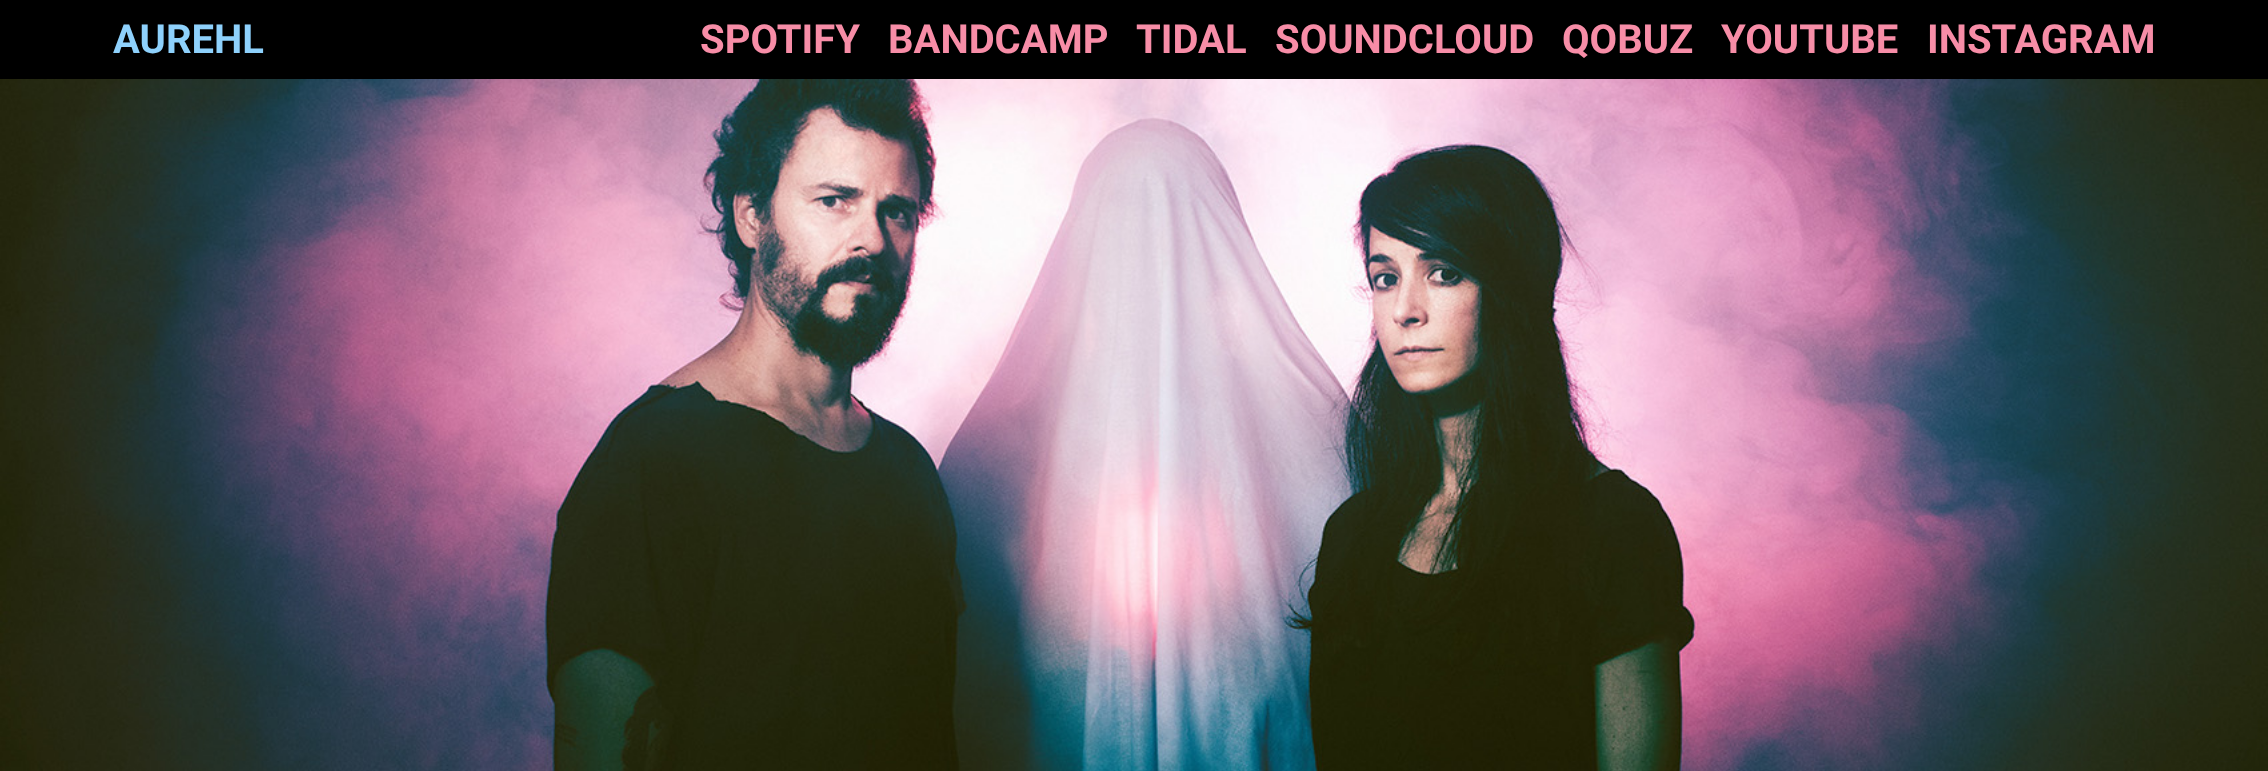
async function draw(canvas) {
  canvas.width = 2268
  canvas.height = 771
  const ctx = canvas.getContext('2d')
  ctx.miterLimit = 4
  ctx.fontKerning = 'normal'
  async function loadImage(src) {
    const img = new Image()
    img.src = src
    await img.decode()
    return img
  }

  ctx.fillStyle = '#fff'
  ctx.fillRect(0, 0, 2268, 771)
  ctx.drawImage(await loadImage('image0.png'), 0, 79, 2268, 692)
  ctx.fillStyle = '#000'
  ctx.fillRect(0, 0, 2268, 79)
  ctx.font = 'bold 40px Roboto'
  ctx.fillStyle = '#8ed1fc'
  ctx.fillText('AUREHL', 113, 53)
  ctx.fillStyle = '#f78da7'
  ctx.fillText('SPOTIFY', 700, 53)
  ctx.fillText('BANDCAMP', 888, 53)
  ctx.fillText('TIDAL', 1136, 53)
  ctx.fillText('SOUNDCLOUD', 1275, 53)
  ctx.fillText('QOBUZ', 1562, 53)
  ctx.fillText('YOUTUBE', 1721, 53)
  ctx.fillText('INSTAGRAM', 1927, 53)
}

draw(document.querySelector('canvas'))
